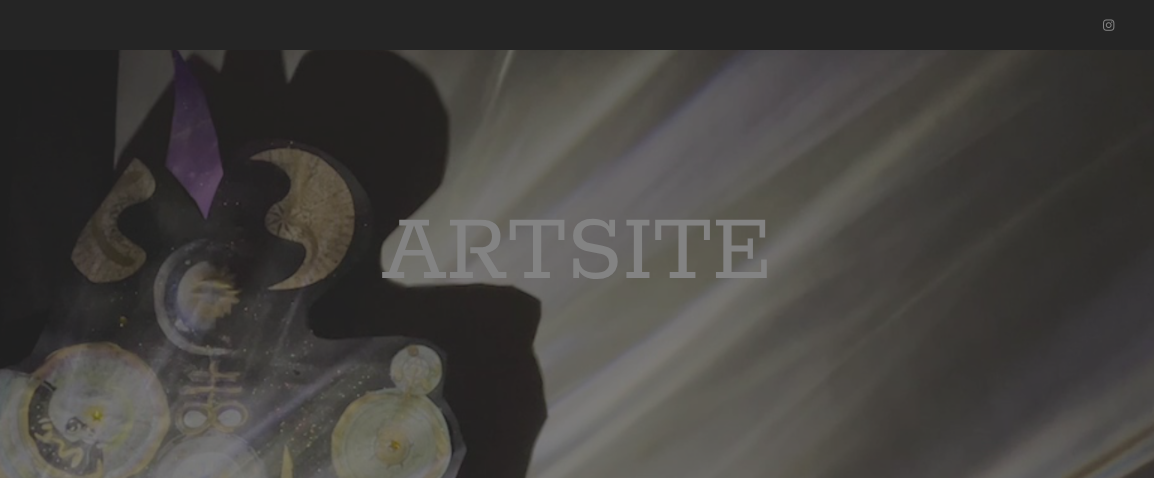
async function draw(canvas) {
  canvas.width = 1154
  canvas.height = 478
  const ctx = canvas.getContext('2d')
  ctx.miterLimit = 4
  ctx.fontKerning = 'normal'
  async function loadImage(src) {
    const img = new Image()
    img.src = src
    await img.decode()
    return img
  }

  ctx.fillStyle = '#252525'
  ctx.fillRect(0, 0, 1154, 478)
  ctx.drawImage(await loadImage('image0.png'), 1103, 19, 12, 12)
  ctx.drawImage(await loadImage('image1.png'), 0, 50, 1154, 428)
  ctx.font = '600 100px Rokkitt'
  ctx.fillStyle = '#838383'
  ctx.fillText('ARTSITE', 382, 278)
}

draw(document.querySelector('canvas'))
